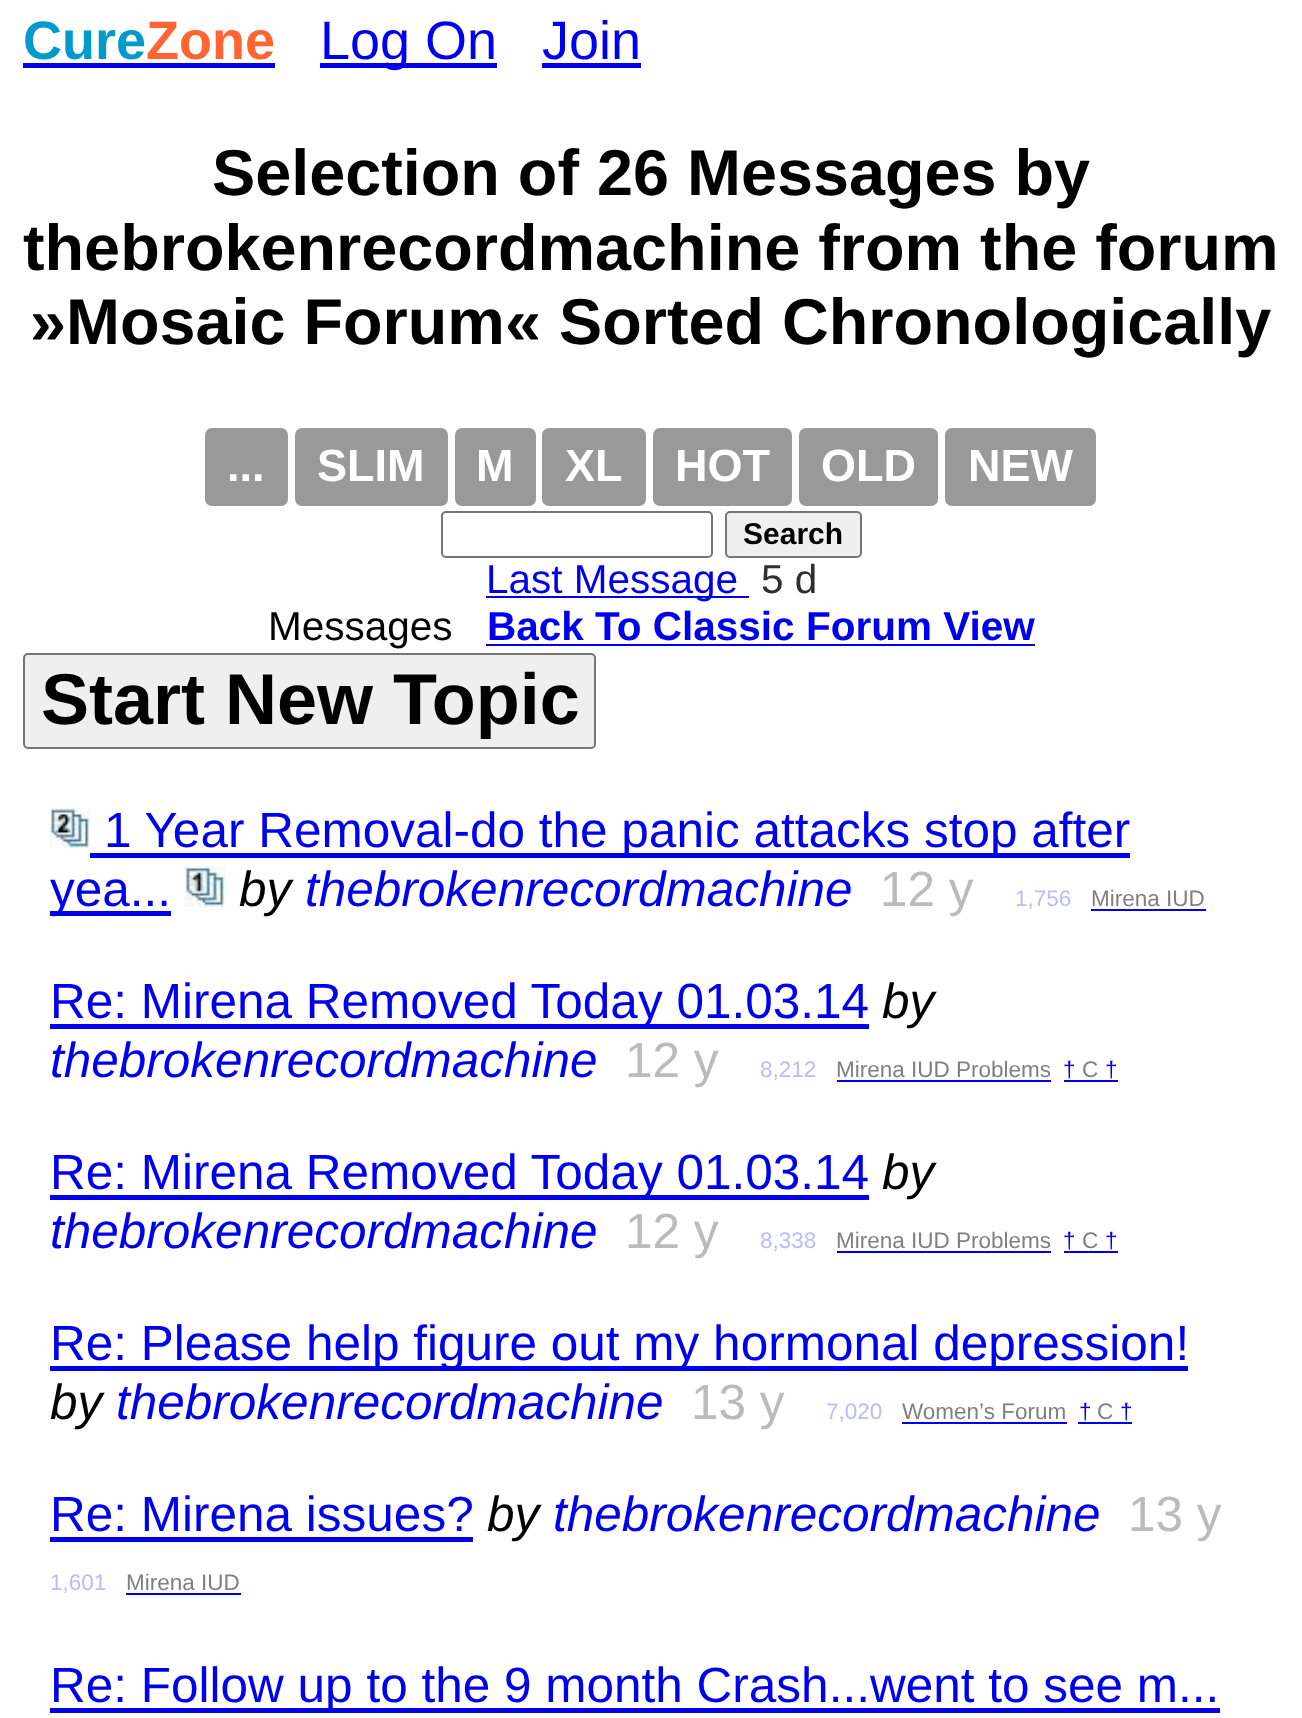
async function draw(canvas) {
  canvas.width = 1302
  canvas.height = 1718
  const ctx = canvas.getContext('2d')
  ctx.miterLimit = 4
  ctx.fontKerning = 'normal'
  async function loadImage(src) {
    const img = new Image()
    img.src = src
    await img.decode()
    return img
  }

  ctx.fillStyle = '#fff'
  ctx.fillRect(0, 0, 1302, 1718)
  ctx.font = 'bold 54px Liberation Sans'
  ctx.fillStyle = '#019acc'
  ctx.fillText('Cure', 23, 59)
  ctx.fillStyle = '#00e'
  ctx.fillRect(23, 63, 252, 5)
  ctx.fillStyle = '#fe6533'
  ctx.fillText('Zone', 146, 59)
  ctx.fillStyle = '#00e'
  ctx.fillRect(320, 63, 177, 5)
  ctx.font = '54px Liberation Sans'
  ctx.fillText('Log On', 320, 59)
  ctx.fillText('Join', 542, 59)
  ctx.fillRect(542, 63, 99, 5)
  ctx.font = 'bold 64.75px Liberation Sans'
  ctx.fillStyle = '#000'
  ctx.fillText('Selection of 26 Messages by', 212, 195)
  ctx.fillText('thebrokenrecordmachine from the forum', 23, 270)
  ctx.fillText('»Mosaic Forum« Sorted Chronologically', 30, 344)
  ctx.fillStyle = '#999'
  ctx.beginPath()
  ctx.roundRect(205, 428, 83, 78, 7)
  ctx.fill()
  ctx.font = 'bold 45px Liberation Sans'
  ctx.fillStyle = '#fff'
  ctx.fillText('...', 227, 481)
  ctx.fillStyle = '#999'
  ctx.beginPath()
  ctx.roundRect(295, 428, 153, 78, 7)
  ctx.fill()
  ctx.fillStyle = '#fff'
  ctx.fillText('SLIM', 317, 481)
  ctx.fillStyle = '#999'
  ctx.beginPath()
  ctx.roundRect(455, 428, 81, 78, 7)
  ctx.fill()
  ctx.fillStyle = '#fff'
  ctx.fillText('M', 476, 481)
  ctx.fillStyle = '#999'
  ctx.beginPath()
  ctx.roundRect(542, 428, 104, 78, 7)
  ctx.fill()
  ctx.fillStyle = '#fff'
  ctx.fillText('XL', 565, 481)
  ctx.fillStyle = '#999'
  ctx.beginPath()
  ctx.roundRect(653, 428, 139, 78, 7)
  ctx.fill()
  ctx.fillStyle = '#fff'
  ctx.fillText('HOT', 675, 481)
  ctx.fillStyle = '#999'
  ctx.beginPath()
  ctx.roundRect(799, 428, 139, 78, 7)
  ctx.fill()
  ctx.fillStyle = '#fff'
  ctx.fillText('OLD', 821, 481)
  ctx.fillStyle = '#999'
  ctx.beginPath()
  ctx.roundRect(945, 428, 151, 78, 7)
  ctx.fill()
  ctx.fillStyle = '#fff'
  ctx.fillText('NEW', 968, 481)
  ctx.beginPath()
  ctx.roundRect(442, 512, 270, 45, 4)
  ctx.strokeStyle = '#767676'
  ctx.lineWidth = 2
  ctx.stroke()
  ctx.fillStyle = '#efefef'
  ctx.beginPath()
  ctx.roundRect(726, 512, 135, 45, 4)
  ctx.fill()
  ctx.stroke()
  ctx.font = 'bold 30px Liberation Sans'
  ctx.fillStyle = '#000'
  ctx.fillText('Search', 743, 544)
  ctx.fillStyle = '#00e'
  ctx.fillRect(486, 596, 263, 2)
  ctx.font = '40.5px Liberation Sans'
  ctx.fillText('Last Message', 486, 593)
  ctx.fillStyle = '#2f2f2f'
  ctx.fillText('5 d', 761, 593)
  ctx.fillStyle = '#000'
  ctx.fillText('Messages', 268, 640)
  ctx.font = 'bold 40.5px Liberation Sans'
  ctx.fillStyle = '#00e'
  ctx.fillText('Back To Classic Forum View', 487, 640)
  ctx.fillRect(486, 644, 549, 2)
  ctx.fillStyle = '#efefef'
  ctx.beginPath()
  ctx.roundRect(24, 654, 571, 94, 4)
  ctx.fill()
  ctx.stroke()
  ctx.font = 'bold 72px Liberation Sans'
  ctx.fillStyle = '#000'
  ctx.fillText('Start New Topic', 41, 724)
  ctx.drawImage(await loadImage('image0.png'), 49, 807, 41, 42)
  ctx.fillStyle = '#00e'
  ctx.fillRect(90, 853, 1040, 5)
  ctx.font = '49.5px Liberation Sans'
  ctx.fillText('1 Year Removal-do the panic attacks stop after', 104, 847)
  ctx.fillRect(50, 911, 121, 5)
  ctx.fillText('yea...', 50, 906)
  ctx.drawImage(await loadImage('image1.png'), 184, 866, 41, 41)
  ctx.font = 'italic 49.5px Liberation Sans'
  ctx.fillStyle = '#000'
  ctx.fillText('by', 239, 906)
  ctx.fillStyle = '#00e'
  ctx.fillText('thebrokenrecordmachine', 305, 906)
  ctx.font = '49.5px Liberation Sans'
  ctx.fillStyle = '#bbb'
  ctx.fillText('12 y', 880, 906)
  ctx.font = '22.5px Liberation Sans'
  ctx.fillStyle = '#bbbbfb'
  ctx.fillText('1,756', 1015, 906)
  ctx.fillStyle = '#808080'
  ctx.fillText('Mirena IUD', 1091, 906)
  ctx.fillStyle = '#00e'
  ctx.fillRect(1091, 909, 115, 2)
  ctx.fillRect(50, 1024, 819, 5)
  ctx.font = '49.5px Liberation Sans'
  ctx.fillText('Re: Mirena Removed Today 01.03.14', 50, 1018)
  ctx.font = 'italic 49.5px Liberation Sans'
  ctx.fillStyle = '#000'
  ctx.fillText('by', 882, 1018)
  ctx.fillStyle = '#00e'
  ctx.fillText('thebrokenrecordmachine', 50, 1077)
  ctx.font = '49.5px Liberation Sans'
  ctx.fillStyle = '#bbb'
  ctx.fillText('12 y', 625, 1077)
  ctx.font = '22.5px Liberation Sans'
  ctx.fillStyle = '#bbbbfb'
  ctx.fillText('8,212', 760, 1077)
  ctx.fillStyle = '#808080'
  ctx.fillText('Mirena IUD Problems', 836, 1077)
  ctx.fillStyle = '#00e'
  ctx.fillRect(837, 1080, 214, 2)
  ctx.fillText('†', 1063, 1077)
  ctx.fillRect(1064, 1080, 54, 2)
  ctx.fillStyle = '#808080'
  ctx.fillText('C', 1082, 1077)
  ctx.fillStyle = '#00e'
  ctx.fillText('†', 1105, 1077)
  ctx.fillRect(50, 1195, 819, 5)
  ctx.font = '49.5px Liberation Sans'
  ctx.fillText('Re: Mirena Removed Today 01.03.14', 50, 1189)
  ctx.font = 'italic 49.5px Liberation Sans'
  ctx.fillStyle = '#000'
  ctx.fillText('by', 882, 1189)
  ctx.fillStyle = '#00e'
  ctx.fillText('thebrokenrecordmachine', 50, 1248)
  ctx.font = '49.5px Liberation Sans'
  ctx.fillStyle = '#bbb'
  ctx.fillText('12 y', 625, 1248)
  ctx.font = '22.5px Liberation Sans'
  ctx.fillStyle = '#bbbbfb'
  ctx.fillText('8,338', 760, 1248)
  ctx.fillStyle = '#808080'
  ctx.fillText('Mirena IUD Problems', 836, 1248)
  ctx.fillStyle = '#00e'
  ctx.fillRect(837, 1251, 214, 2)
  ctx.fillText('†', 1063, 1248)
  ctx.fillRect(1064, 1251, 54, 2)
  ctx.fillStyle = '#808080'
  ctx.fillText('C', 1082, 1248)
  ctx.fillStyle = '#00e'
  ctx.fillText('†', 1105, 1248)
  ctx.fillRect(50, 1366, 1138, 5)
  ctx.font = '49.5px Liberation Sans'
  ctx.fillText('Re: Please help figure out my hormonal depression!', 50, 1360)
  ctx.font = 'italic 49.5px Liberation Sans'
  ctx.fillStyle = '#000'
  ctx.fillText('by', 50, 1419)
  ctx.fillStyle = '#00e'
  ctx.fillText('thebrokenrecordmachine', 116, 1419)
  ctx.font = '49.5px Liberation Sans'
  ctx.fillStyle = '#bbb'
  ctx.fillText('13 y', 691, 1419)
  ctx.font = '22.5px Liberation Sans'
  ctx.fillStyle = '#bbbbfb'
  ctx.fillText('7,020', 826, 1419)
  ctx.fillStyle = '#808080'
  ctx.fillText('Women’s Forum', 902, 1419)
  ctx.fillStyle = '#00e'
  ctx.fillRect(902, 1422, 165, 2)
  ctx.fillText('†', 1079, 1419)
  ctx.fillRect(1078, 1422, 54, 2)
  ctx.fillStyle = '#808080'
  ctx.fillText('C', 1097, 1419)
  ctx.fillStyle = '#00e'
  ctx.fillText('†', 1120, 1419)
  ctx.font = '49.5px Liberation Sans'
  ctx.fillText('Re: Mirena issues?', 50, 1531)
  ctx.fillRect(50, 1537, 423, 5)
  ctx.font = 'italic 49.5px Liberation Sans'
  ctx.fillStyle = '#000'
  ctx.fillText('by', 487, 1531)
  ctx.fillStyle = '#00e'
  ctx.fillText('thebrokenrecordmachine', 553, 1531)
  ctx.font = '49.5px Liberation Sans'
  ctx.fillStyle = '#bbb'
  ctx.fillText('13 y', 1128, 1531)
  ctx.font = '22.5px Liberation Sans'
  ctx.fillStyle = '#bbbbfb'
  ctx.fillText('1,601', 50, 1590)
  ctx.fillStyle = '#808080'
  ctx.fillText('Mirena IUD', 126, 1590)
  ctx.fillStyle = '#00e'
  ctx.fillRect(126, 1593, 115, 2)
  ctx.fillRect(50, 1708, 1170, 5)
  ctx.font = '49.5px Liberation Sans'
  ctx.fillText('Re: Follow up to the 9 month Crash...went to see m...', 50, 1702)
}

draw(document.querySelector('canvas'))
